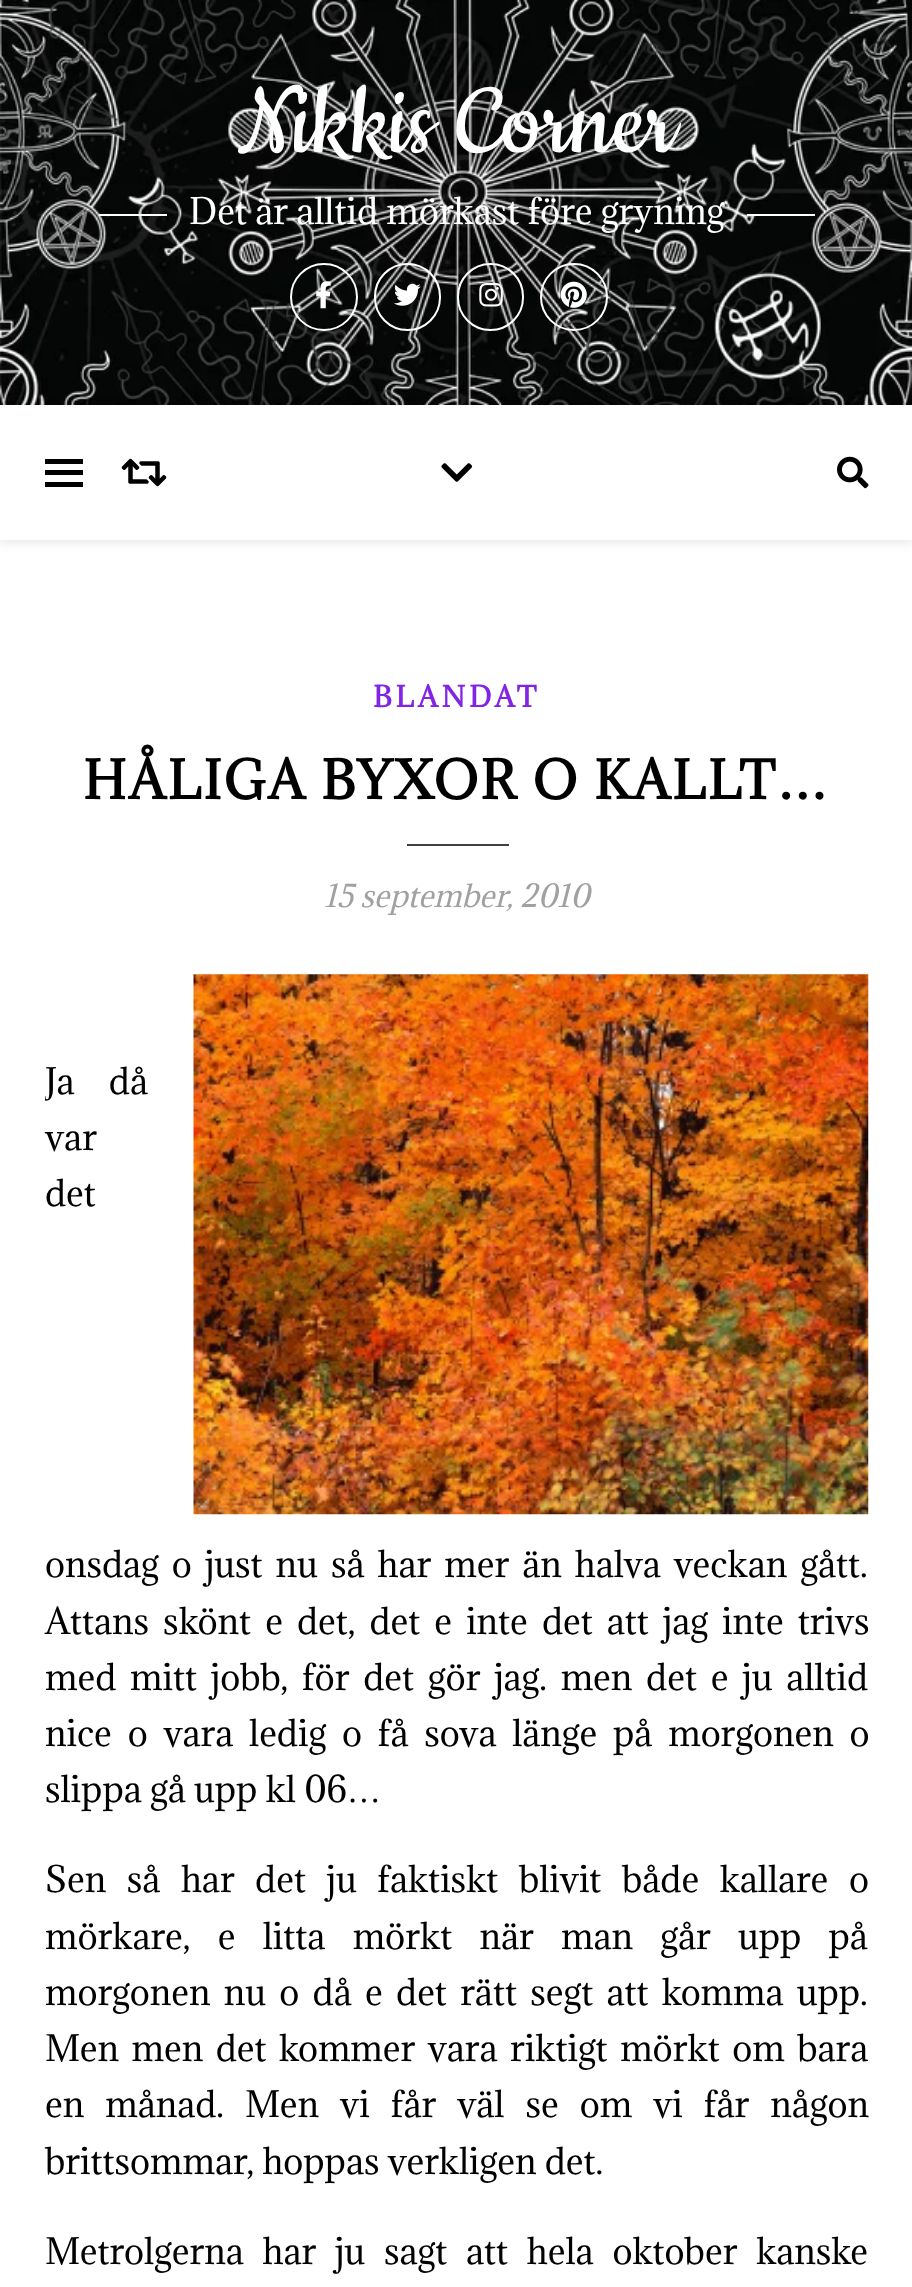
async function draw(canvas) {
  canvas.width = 912
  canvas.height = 2287
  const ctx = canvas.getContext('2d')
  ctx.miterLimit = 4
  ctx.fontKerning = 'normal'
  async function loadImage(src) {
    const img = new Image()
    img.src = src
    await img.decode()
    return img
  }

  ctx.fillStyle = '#fff'
  ctx.fillRect(0, 0, 912, 2287)
  ctx.drawImage(await loadImage('image0.png'), 0, 0, 912, 405)
  ctx.font = '112.5px Cookie'
  ctx.fillText('Nikkis Corner', 238, 152)
  ctx.fillRect(99, 214, 68, 2)
  ctx.font = '33.75px Adamina'
  ctx.fillText('Det är alltid mörkast före gryning', 189, 224)
  ctx.fillRect(747, 214, 68, 2)
  ctx.beginPath()
  ctx.arc(324, 297, 33, 0, 2 * Math.PI)
  ctx.strokeStyle = '#fff'
  ctx.lineWidth = 2
  ctx.stroke()
  ctx.drawImage(await loadImage('image1.png'), 316, 281, 15, 28)
  ctx.beginPath()
  ctx.roundRect(375, 264, 65, 66, 32.5)
  ctx.stroke()
  ctx.drawImage(await loadImage('image2.png'), 394, 283, 27, 23)
  ctx.beginPath()
  ctx.roundRect(458, 264, 65, 66, 32.5)
  ctx.stroke()
  ctx.drawImage(await loadImage('image3.png'), 479, 282, 24, 25)
  ctx.beginPath()
  ctx.arc(574, 297, 33, 0, 2 * Math.PI)
  ctx.stroke()
  ctx.drawImage(await loadImage('image4.png'), 560, 281, 27, 27)
  ctx.fillStyle = '#0000001a'
  ctx.filter = 'blur(5.5px)'
  ctx.beginPath()
  ctx.rect(0, 407, 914, 135)
  ctx.fill()
  ctx.filter = 'none'
  ctx.fillStyle = '#fff'
  ctx.fillRect(0, 405, 912, 135)
  ctx.fillStyle = '#000'
  ctx.fillRect(45, 459, 38, 5)
  ctx.fillRect(45, 470, 38, 5)
  ctx.fillRect(45, 482, 38, 5)
  ctx.drawImage(await loadImage('image5.png'), 121, 458, 46, 29)
  ctx.drawImage(await loadImage('image6.png'), 441, 463, 32, 19)
  ctx.drawImage(await loadImage('image7.png'), 837, 456, 32, 33)
  ctx.letterSpacing = '3.75px'
  ctx.font = 'bold 27px Adamina'
  ctx.fillStyle = '#8224e3'
  ctx.fillText('BLANDAT', 373, 707)
  ctx.letterSpacing = '2.25px'
  ctx.font = 'bold 49.5px Adamina'
  ctx.fillStyle = '#000'
  ctx.fillText('HÅLIGA BYXOR O KALLT', 83, 799)
  ctx.font = 'bold 49.5px Liberation Serif'
  ctx.fillText('…', 778, 799)
  ctx.fillStyle = '#3f3f3f'
  ctx.fillRect(407, 844, 102, 2)
  ctx.letterSpacing = '0px'
  ctx.font = 'italic 29.25px Adamina'
  ctx.fillStyle = '#a1a1a1'
  ctx.fillText('15 september, 2010', 324, 907)
  ctx.drawImage(await loadImage('image8.png'), 193, 974, 676, 541)
  ctx.save()
  ctx.beginPath()
  ctx.rect(45, 963, 824, 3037)
  ctx.clip()
  ctx.wordSpacing = '26px'
  ctx.font = '33.75px Adamina'
  ctx.fillStyle = '#000'
  ctx.fillText('Ja då', 45, 1094)
  ctx.restore()
  ctx.font = '33.75px Adamina'
  ctx.fillStyle = '#000'
  ctx.fillText('var', 45, 1150)
  ctx.fillText('det', 45, 1206)
  ctx.wordSpacing = '4.75px'
  ctx.fillText('onsdag o just nu så har mer än halva veckan gått.', 45, 1577)
  ctx.wordSpacing = '5.75px'
  ctx.fillText('Attans skönt e det, det e inte det att jag inte trivs', 45, 1634)
  ctx.wordSpacing = '5.5px'
  ctx.fillText('med mitt jobb, för det gör jag. men det e ju alltid', 45, 1690)
  ctx.wordSpacing = '7.5px'
  ctx.fillText('nice o vara ledig o få sova länge på morgonen o', 45, 1746)
  ctx.wordSpacing = '0px'
  ctx.fillText('slippa gå upp kl 06', 45, 1802)
  ctx.font = '33.75px Liberation Serif'
  ctx.fillText('…', 347, 1802)
  ctx.wordSpacing = '12.25px'
  ctx.font = '33.75px Adamina'
  ctx.fillText('Sen så har det ju faktiskt blivit både kallare o', 45, 1892)
  ctx.wordSpacing = '19px'
  ctx.fillText('mörkare, e litta mörkt när man går upp på', 45, 1949)
  ctx.wordSpacing = '5px'
  ctx.fillText('morgonen nu o då e det rätt segt att komma upp.', 45, 2005)
  ctx.wordSpacing = '4.25px'
  ctx.fillText('Men men det kommer vara riktigt mörkt om bara', 45, 2061)
  ctx.wordSpacing = '12.75px'
  ctx.fillText('en månad. Men vi får väl se om vi får någon', 45, 2117)
  ctx.wordSpacing = '0px'
  ctx.fillText('brittsommar, hoppas verkligen det.', 45, 2174)
  ctx.wordSpacing = '10.5px'
  ctx.fillText('Metrolgerna har ju sagt att hela oktober kanske', 45, 2264)
}

draw(document.querySelector('canvas'))
